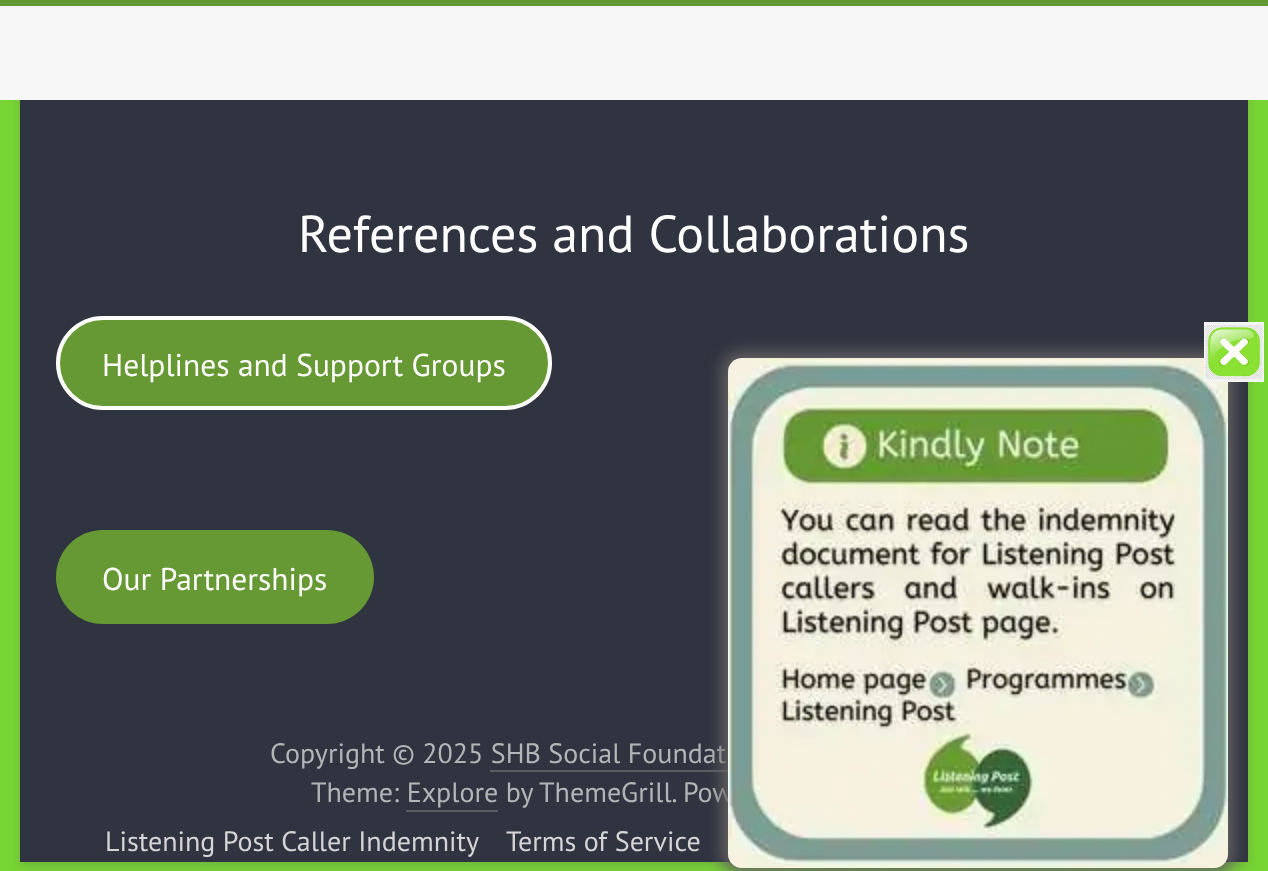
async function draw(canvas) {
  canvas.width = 1268
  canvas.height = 871
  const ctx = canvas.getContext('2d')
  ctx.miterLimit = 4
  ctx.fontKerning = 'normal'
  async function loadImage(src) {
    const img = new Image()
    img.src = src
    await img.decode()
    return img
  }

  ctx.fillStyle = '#77d633'
  ctx.fillRect(0, 0, 1268, 871)
  ctx.fillStyle = '#6464644d'
  ctx.filter = 'blur(6px)'
  ctx.beginPath()
  ctx.rect(20, -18, 1228, 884)
  ctx.fill()
  ctx.filter = 'none'
  ctx.fillStyle = '#f7f7f7'
  ctx.fillRect(0, 6, 1268, 94)
  ctx.fillStyle = '#669934'
  ctx.fillRect(0, 0, 1268, 6)
  ctx.fillStyle = '#303440'
  ctx.fillRect(20, 100, 1228, 762)
  ctx.font = '52px PT Sans'
  ctx.fillStyle = '#fff'
  ctx.fillText('References and Collaborations', 298, 252)
  ctx.fillStyle = '#669934'
  ctx.beginPath()
  ctx.roundRect(58, 318, 492, 90, 45)
  ctx.fill()
  ctx.strokeStyle = '#fff'
  ctx.lineWidth = 4
  ctx.stroke()
  ctx.font = '31.5px PT Sans'
  ctx.fillStyle = '#fff'
  ctx.fillText('Helplines and Support Groups', 102, 376)
  ctx.fillStyle = '#669934'
  ctx.beginPath()
  ctx.roundRect(56, 530, 318, 94, 47)
  ctx.fill()
  ctx.fillStyle = '#fff'
  ctx.fillText('Our Partnerships', 102, 590)
  ctx.font = '28px PT Sans'
  ctx.fillStyle = '#b1b6b6'
  ctx.fillText('Copyright © 2025 SHB Social Foundat', 270, 763)
  ctx.fillStyle = '#5a5d62'
  ctx.fillRect(490, 770, 238, 2)
  ctx.fillStyle = '#b1b6b6'
  ctx.fillText('Theme: Explore by ThemeGrill. Pow', 311, 802)
  ctx.fillStyle = '#5a5d62'
  ctx.fillRect(406, 810, 92, 2)
  ctx.fillStyle = '#d5d5d5'
  ctx.fillText('Listening Post Caller Indemnity', 105, 851)
  ctx.fillText('Terms of Service', 506, 851)
  ctx.fillStyle = '#646161'
  ctx.filter = 'blur(8px)'
  ctx.beginPath()
  ctx.roundRect(722, 352, 512, 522, 20)
  ctx.fill()
  ctx.filter = 'none'
  ctx.drawImage(await loadImage('image1.png'), 728, 358, 500, 510)
  ctx.drawImage(await loadImage('image0.png'), 1204, 322, 60, 60)
}

draw(document.querySelector('canvas'))
